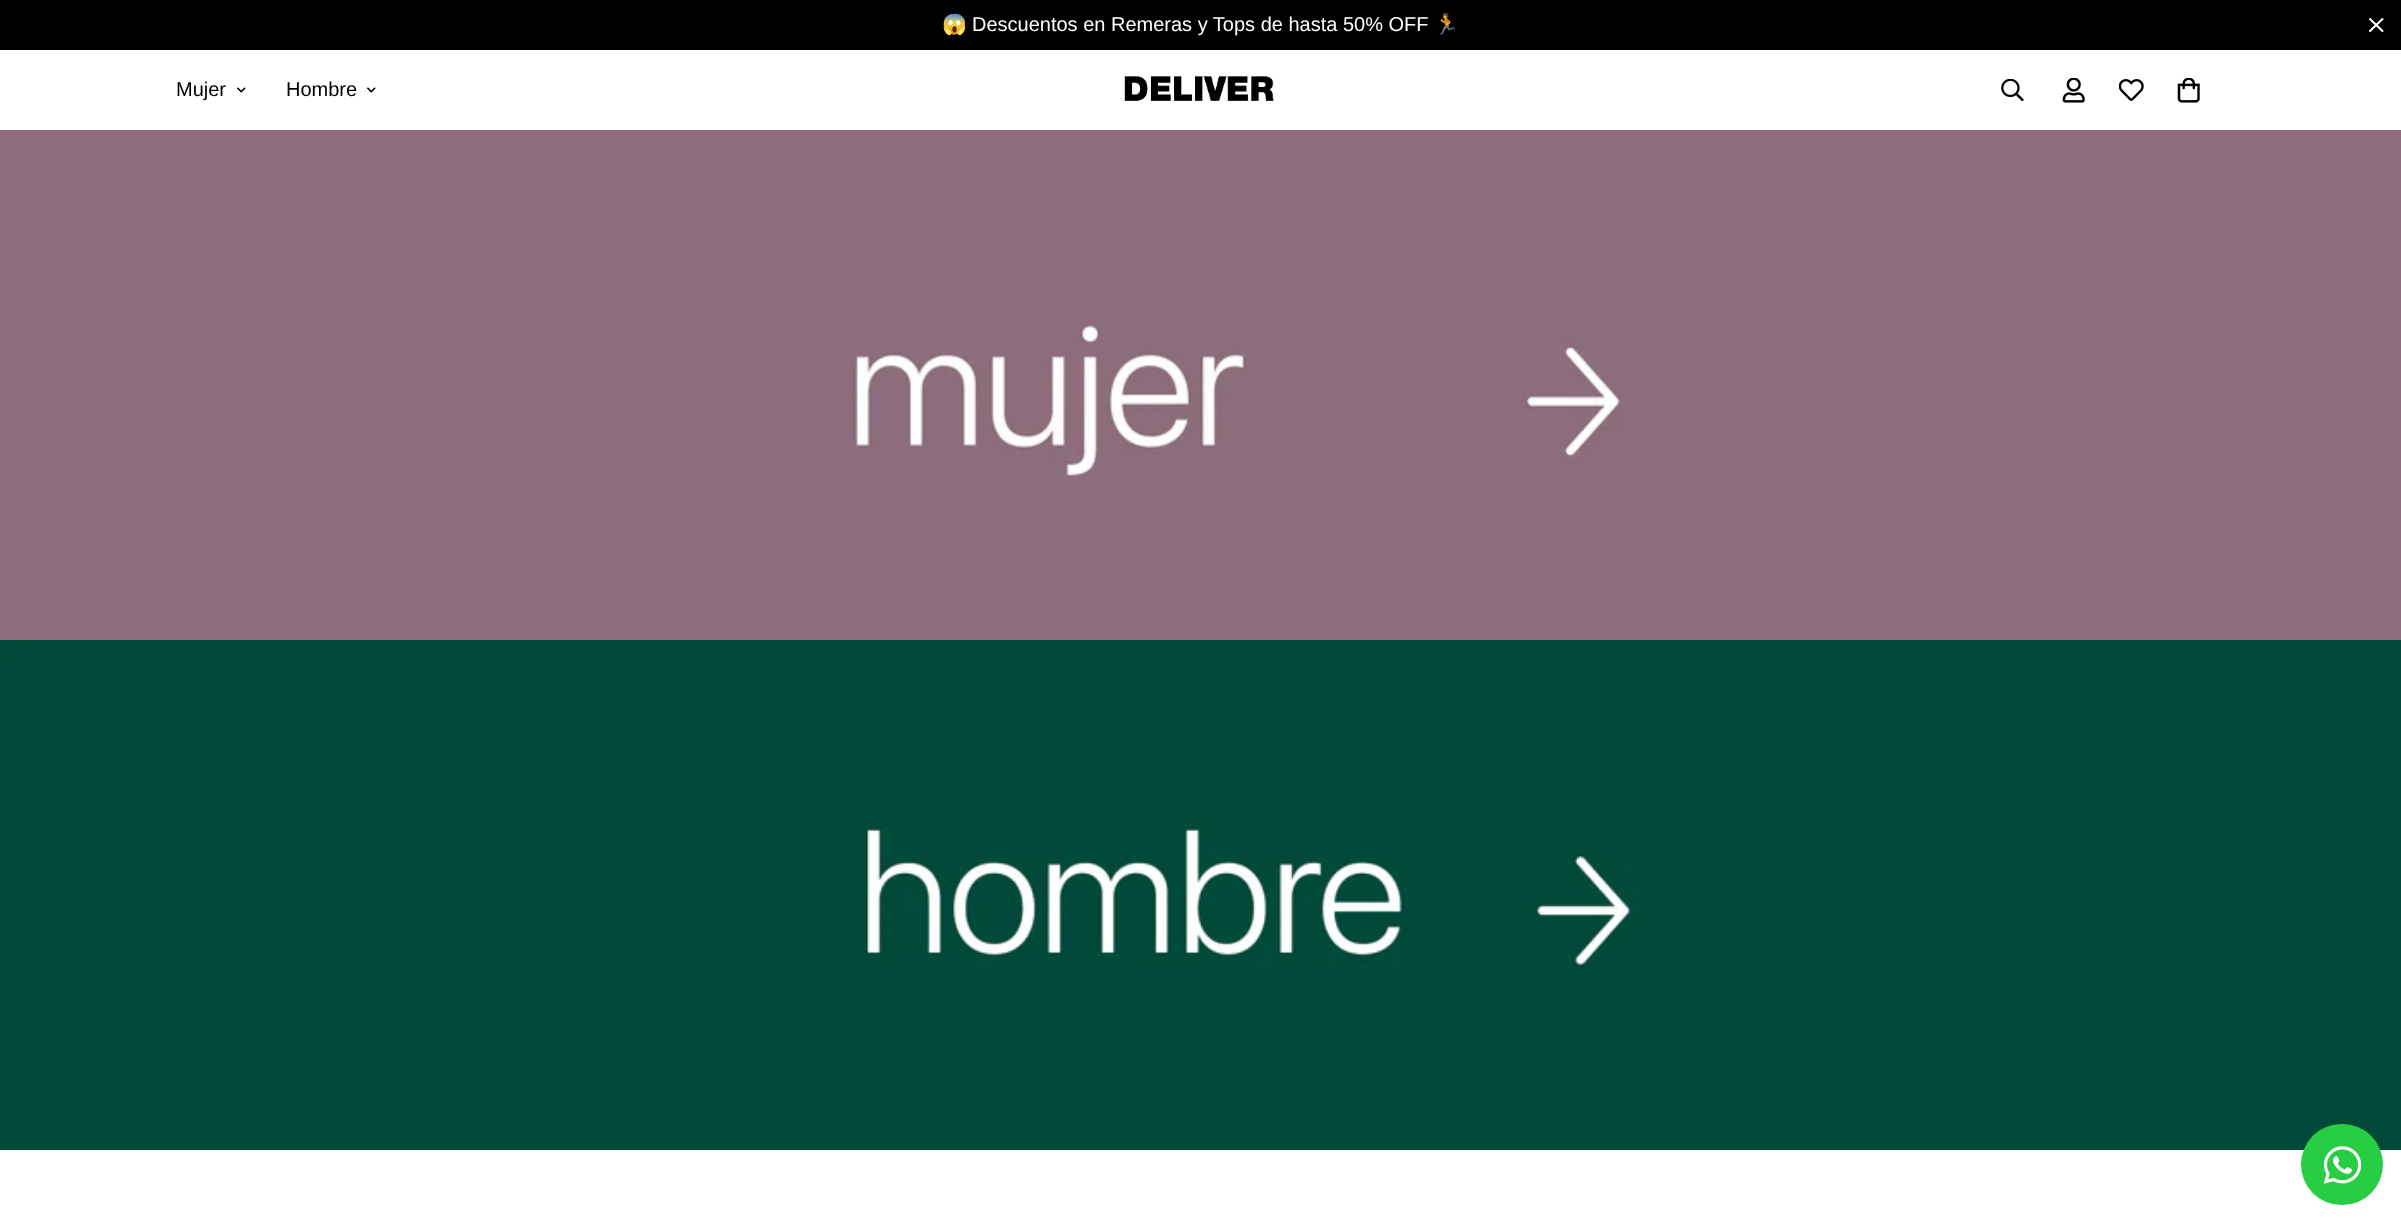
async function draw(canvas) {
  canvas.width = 2401
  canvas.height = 1224
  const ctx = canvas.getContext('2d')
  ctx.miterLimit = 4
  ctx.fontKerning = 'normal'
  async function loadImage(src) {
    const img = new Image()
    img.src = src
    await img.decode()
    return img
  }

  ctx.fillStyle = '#fff'
  ctx.fillRect(0, 0, 2401, 1224)
  ctx.fillStyle = '#000'
  ctx.fillRect(0, 0, 2401, 50)
  ctx.font = '20px Noto Color Emoji'
  ctx.fillStyle = '#fff'
  ctx.fillText('😱', 942, 31)
  ctx.font = '20px Arimo'
  ctx.fillText('Descuentos en Remeras y Tops de hasta 50% OFF', 972, 31)
  ctx.font = '20px Noto Color Emoji'
  ctx.fillText('🏃', 1434, 31)
  ctx.beginPath()
  ctx.moveTo(2370, 31)
  ctx.lineTo(2382.5, 19)
  ctx.moveTo(2370, 19)
  ctx.lineTo(2382.5, 31)
  ctx.strokeStyle = '#fff'
  ctx.lineWidth = 2.1
  ctx.lineCap = 'round'
  ctx.lineJoin = 'round'
  ctx.stroke()
  ctx.font = '20px Arimo'
  ctx.fillStyle = '#000'
  ctx.fillText('Mujer', 176, 96)
  ctx.drawImage(await loadImage('image0.png'), 237, 87, 9, 6)
  ctx.fillText('Hombre', 286, 96)
  ctx.drawImage(await loadImage('image0.png'), 367, 87, 9, 6)
  ctx.drawImage(await loadImage('image1.png'), 1123, 76, 151, 26)
  ctx.drawImage(await loadImage('image2.png'), 2001, 79, 23, 22)
  ctx.drawImage(await loadImage('image3.png'), 2062, 78, 23, 25)
  ctx.drawImage(await loadImage('image4.png'), 2119, 79, 25, 22)
  ctx.drawImage(await loadImage('image5.png'), 2177, 78, 23, 25)
  ctx.drawImage(await loadImage('image6.png'), 0, 130, 2401, 510)
  ctx.drawImage(await loadImage('image7.png'), 0, 640, 2401, 510)
  ctx.fillStyle = '#27ce43'
  ctx.beginPath()
  ctx.roundRect(2301, 1124, 82, 81, 40.5)
  ctx.fill()
  ctx.drawImage(await loadImage('image8.png'), 2324, 1146, 37, 38)
}

draw(document.querySelector('canvas'))
